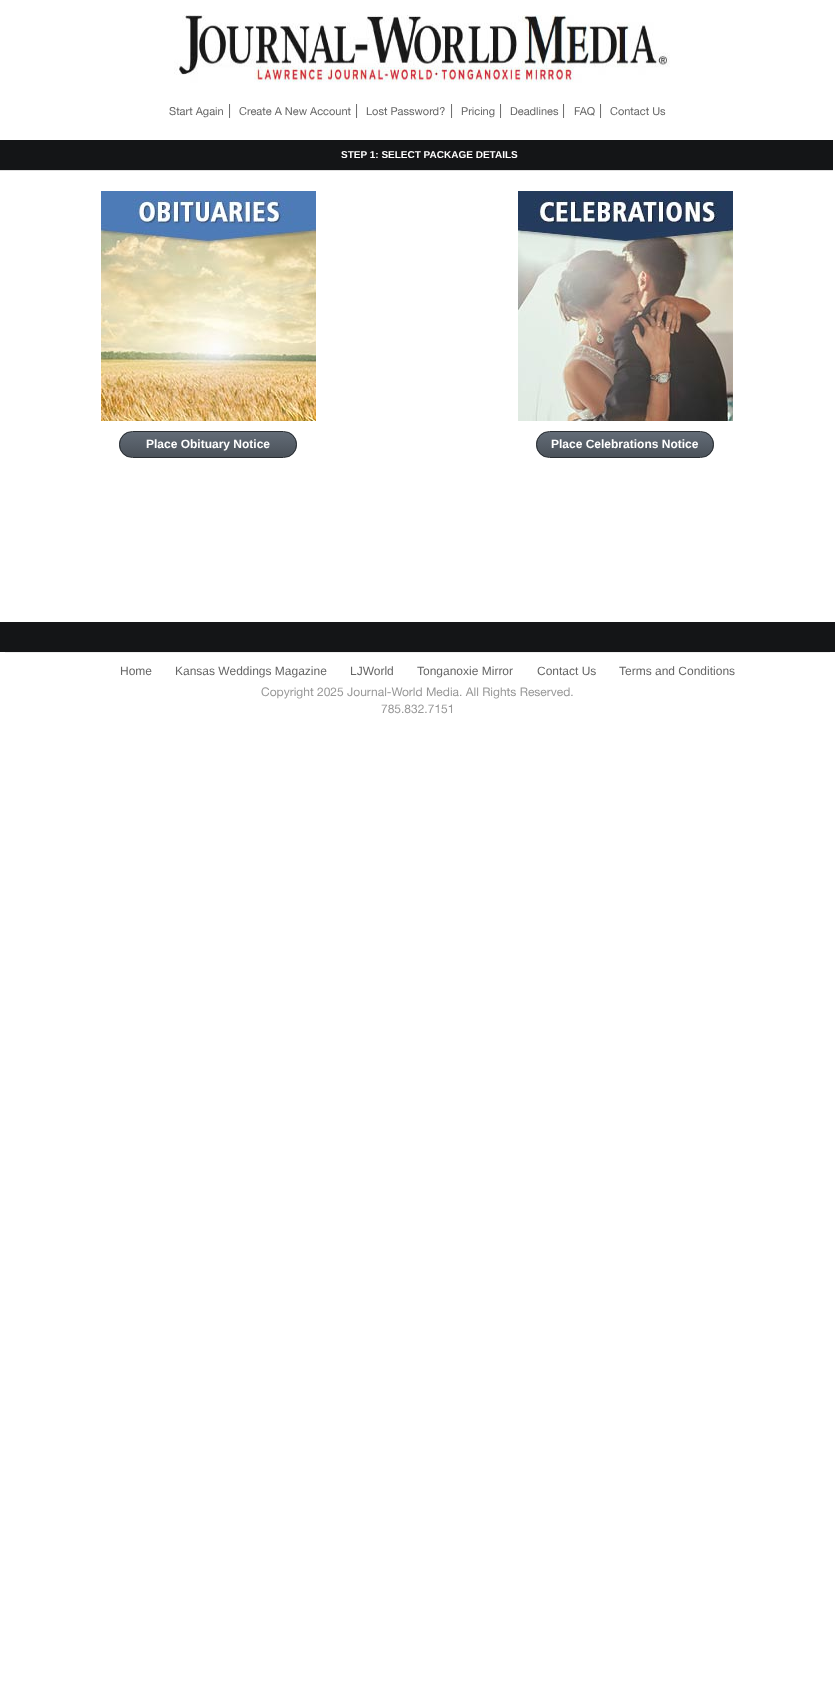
async function draw(canvas) {
  canvas.width = 835
  canvas.height = 1694
  const ctx = canvas.getContext('2d')
  ctx.miterLimit = 4
  ctx.fontKerning = 'normal'
  async function loadImage(src) {
    const img = new Image()
    img.src = src
    await img.decode()
    return img
  }
  let gradient

  ctx.fillStyle = '#fff'
  ctx.fillRect(0, 0, 835, 1694)
  ctx.drawImage(await loadImage('image0.png'), 174, 15, 496, 68)
  ctx.font = '11px Helvetica Neue'
  ctx.fillStyle = '#666'
  ctx.fillText('Start Again', 169, 115)
  ctx.font = '14px Helvetica Neue'
  ctx.fillText('|', 228, 115)
  ctx.font = '11px Helvetica Neue'
  ctx.fillText('Create A New Account', 239, 115)
  ctx.font = '14px Helvetica Neue'
  ctx.fillText('|', 355, 115)
  ctx.font = '11px Helvetica Neue'
  ctx.fillText('Lost Password?', 366, 115)
  ctx.font = '14px Helvetica Neue'
  ctx.fillText('|', 450, 115)
  ctx.font = '11px Helvetica Neue'
  ctx.fillText('Pricing', 461, 115)
  ctx.font = '14px Helvetica Neue'
  ctx.fillText('|', 499, 115)
  ctx.font = '11px Helvetica Neue'
  ctx.fillText('Deadlines', 510, 115)
  ctx.font = '14px Helvetica Neue'
  ctx.fillText('|', 562, 115)
  ctx.font = '11px Helvetica Neue'
  ctx.fillText('FAQ', 574, 115)
  ctx.font = '14px Helvetica Neue'
  ctx.fillText('|', 599, 115)
  ctx.font = '11px Helvetica Neue'
  ctx.fillText('Contact Us', 610, 115)
  ctx.fillStyle = '#141517'
  ctx.fillRect(0, 140, 833, 30)
  ctx.fillStyle = '#dedede'
  ctx.fillRect(0, 170, 833, 1)
  ctx.font = 'bold 10px Liberation Sans'
  ctx.fillStyle = '#fff'
  ctx.fillText('STEP 1: SELECT PACKAGE DETAILS', 341, 158)
  ctx.drawImage(await loadImage('image1.png'), 101, 191, 215, 230)
  ctx.save()
  ctx.beginPath()
  ctx.roundRect(119, 431, 178, 27, 13.5)
  ctx.clip()
  gradient = ctx.createLinearGradient(208, 432, 208, 457)
  gradient.addColorStop(0, '#626b76')
  gradient.addColorStop(1, '#4b525a')
  ctx.fillStyle = gradient
  ctx.fillRect(119, 432, 178, 25)
  ctx.restore()
  ctx.beginPath()
  ctx.roundRect(119.5, 431.5, 177, 26, 13)
  ctx.strokeStyle = '#2b2f33'
  ctx.stroke()
  ctx.font = 'bold 12px Liberation Sans'
  ctx.fillText('Place Obituary Notice', 146, 448)
  ctx.drawImage(await loadImage('image2.png'), 518, 191, 215, 230)
  ctx.save()
  ctx.beginPath()
  ctx.roundRect(536, 431, 178, 27, 13.5)
  ctx.clip()
  gradient = ctx.createLinearGradient(625, 432, 625, 457)
  gradient.addColorStop(0, '#626b76')
  gradient.addColorStop(1, '#4b525a')
  ctx.fillStyle = gradient
  ctx.fillRect(536, 432, 178, 25)
  ctx.restore()
  ctx.beginPath()
  ctx.roundRect(536.5, 431.5, 177, 26, 13)
  ctx.stroke()
  ctx.fillText('Place Celebrations Notice', 551, 448)
  ctx.fillStyle = '#141517'
  ctx.fillRect(0, 622, 835, 30)
  ctx.fillStyle = '#eee'
  ctx.fillRect(5, 652, 825, 1)
  ctx.font = '12px Liberation Sans'
  ctx.fillStyle = '#666'
  ctx.fillText('Home', 120, 675)
  ctx.fillText('Kansas Weddings Magazine', 175, 675)
  ctx.fillText('LJWorld', 350, 675)
  ctx.fillText('Tonganoxie Mirror', 417, 675)
  ctx.fillText('Contact Us', 537, 675)
  ctx.fillText('Terms and Conditions', 619, 675)
  ctx.font = '12px Helvetica Neue'
  ctx.fillStyle = '#999'
  ctx.fillText('Copyright 2025 Journal-World Media. All Rights Reserved.', 261, 696)
  ctx.fillText('785.832.7151', 381, 713)
}

draw(document.querySelector('canvas'))
